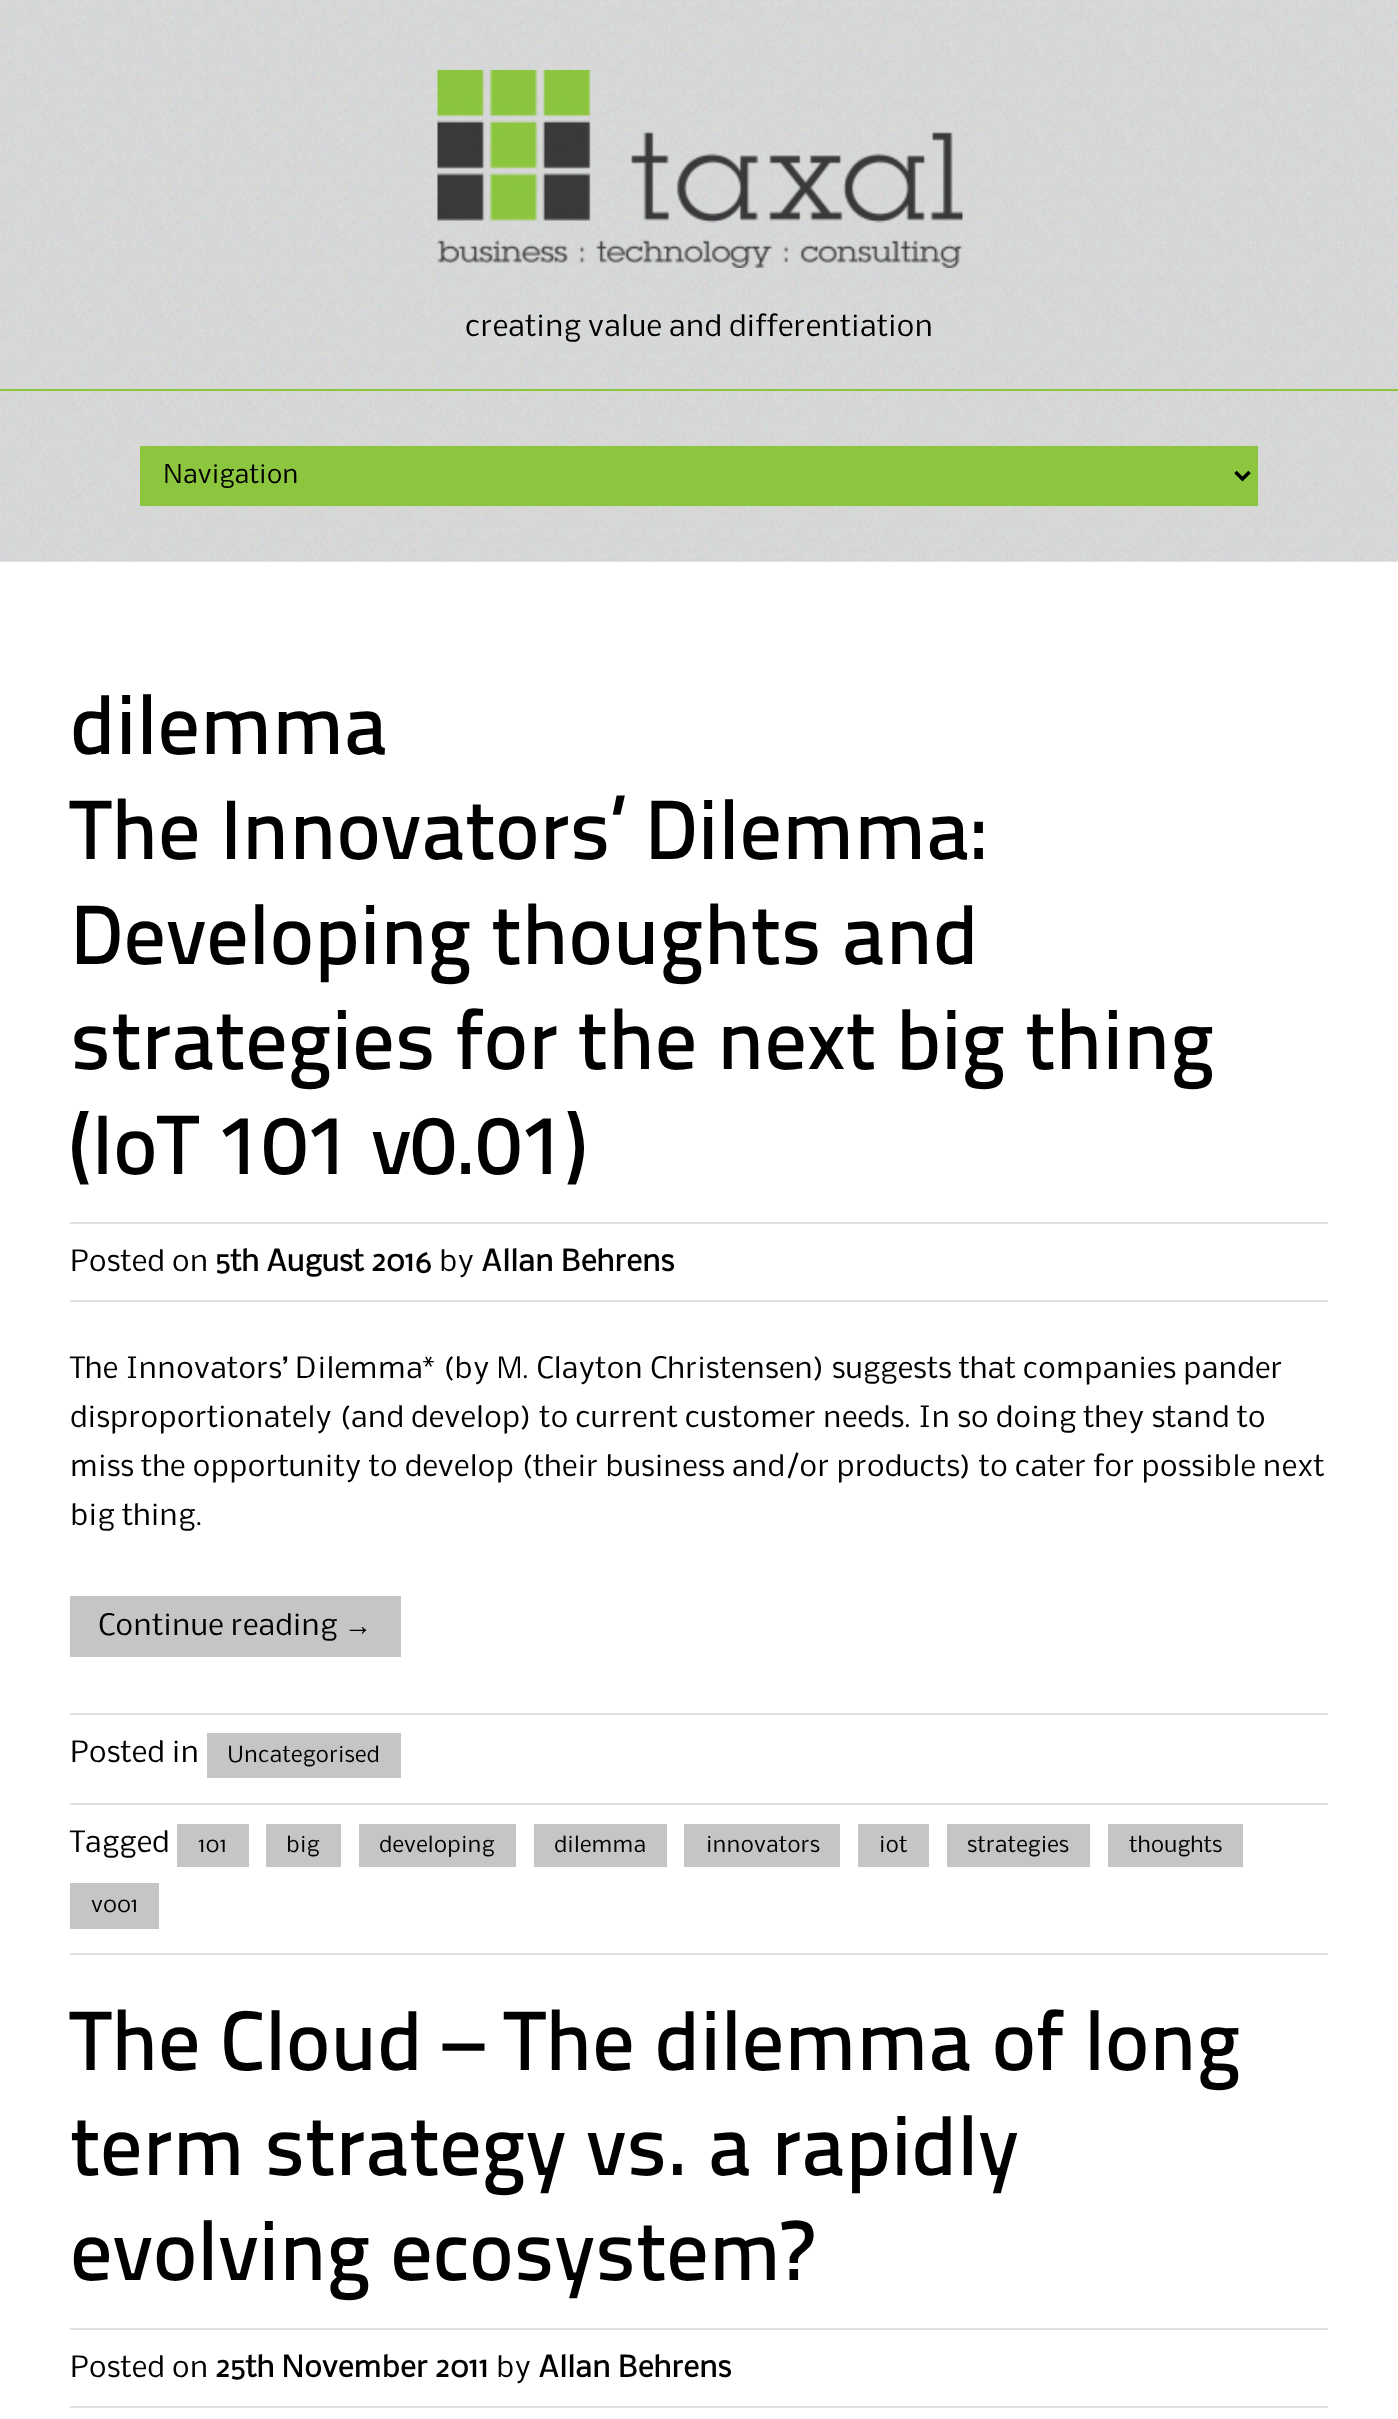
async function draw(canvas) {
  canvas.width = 1398
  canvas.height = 2419
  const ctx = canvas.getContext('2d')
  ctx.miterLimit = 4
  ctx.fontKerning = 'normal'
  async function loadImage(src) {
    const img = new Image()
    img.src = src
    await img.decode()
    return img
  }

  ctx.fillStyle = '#fff'
  ctx.fillRect(0, 0, 1398, 2419)
  ctx.drawImage(await loadImage('image0.png'), 0, 0, 1398, 562)
  ctx.drawImage(await loadImage('image1.png'), 437, 70, 526, 198)
  ctx.font = '28px Nobile'
  ctx.fillStyle = '#000'
  ctx.fillText('creating value and differentiation', 465, 336)
  ctx.fillStyle = '#8cc63f'
  ctx.fillRect(0, 389, 1398, 2)
  ctx.fillRect(140, 446, 1118, 60)
  ctx.beginPath()
  ctx.moveTo(1235.5, 472)
  ctx.lineTo(1242.5, 479)
  ctx.lineTo(1249.5, 472)
  ctx.strokeStyle = '#000'
  ctx.lineWidth = 3.5
  ctx.stroke()
  ctx.font = '24.5px Nobile'
  ctx.fillStyle = '#000'
  ctx.fillText('Navigation', 163, 483)
  ctx.font = '500 84px "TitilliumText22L"'
  ctx.fillText('dilemma', 70, 754)
  ctx.fillStyle = '#dddfe2'
  ctx.fillRect(70, 1222, 1258, 2)
  ctx.fillStyle = '#000'
  ctx.fillText('The Innovators’ Dilemma:', 70, 859)
  ctx.fillText('Developing thoughts and', 70, 964)
  ctx.fillText('strategies for the next big thing', 70, 1069)
  ctx.fillText('(IoT 101 v0.01)', 70, 1174)
  ctx.fillStyle = '#dddfe2'
  ctx.fillRect(70, 1300, 1258, 2)
  ctx.font = '28px Nobile'
  ctx.fillStyle = '#000'
  ctx.fillText('Posted on', 70, 1271)
  ctx.font = 'bold 28px Nobile'
  ctx.fillText('5th August 2016', 215, 1271)
  ctx.font = '28px Nobile'
  ctx.fillText('by', 439, 1271)
  ctx.font = 'bold 28px Nobile'
  ctx.fillText('Allan Behrens', 481, 1271)
  ctx.font = '28px Nobile'
  ctx.fillText('The Innovators’ Dilemma* (by M. Clayton Christensen) suggests that companies pander', 70, 1378)
  ctx.fillText('disproportionately (and develop) to current customer needs. In so doing they stand to', 70, 1427)
  ctx.fillText('miss the opportunity to develop (their business and/or products) to cater for possible next', 70, 1476)
  ctx.fillText('big thing.', 70, 1525)
  ctx.fillStyle = '#c3c5c7'
  ctx.fillRect(70, 1596, 331, 61)
  ctx.fillStyle = '#000'
  ctx.fillText('Continue reading', 98, 1635)
  ctx.font = '28px Liberation Sans'
  ctx.fillText('→', 344, 1635)
  ctx.fillStyle = '#dddfe2'
  ctx.fillRect(70, 1713, 1258, 2)
  ctx.fillRect(70, 1803, 1258, 2)
  ctx.font = '28px Nobile'
  ctx.fillStyle = '#000'
  ctx.fillText('Posted in', 70, 1762)
  ctx.fillStyle = '#c3c5c7'
  ctx.fillRect(207, 1733, 194, 45)
  ctx.font = '21px Nobile'
  ctx.fillStyle = '#000'
  ctx.fillText('Uncategorised', 227, 1762)
  ctx.fillStyle = '#dddfe2'
  ctx.fillRect(70, 1953, 1258, 2)
  ctx.font = '28px Nobile'
  ctx.fillStyle = '#000'
  ctx.fillText('Tagged', 70, 1852)
  ctx.fillStyle = '#c3c5c7'
  ctx.fillRect(177, 1824, 72, 43)
  ctx.font = '21px Nobile'
  ctx.fillStyle = '#000'
  ctx.fillText('101', 198, 1852)
  ctx.fillStyle = '#c3c5c7'
  ctx.fillRect(266, 1824, 75, 43)
  ctx.fillStyle = '#000'
  ctx.fillText('big', 286, 1852)
  ctx.fillStyle = '#c3c5c7'
  ctx.fillRect(359, 1824, 157, 43)
  ctx.fillStyle = '#000'
  ctx.fillText('developing', 379, 1852)
  ctx.fillStyle = '#c3c5c7'
  ctx.fillRect(534, 1824, 133, 43)
  ctx.fillStyle = '#000'
  ctx.fillText('dilemma', 554, 1852)
  ctx.fillStyle = '#c3c5c7'
  ctx.fillRect(684, 1824, 156, 43)
  ctx.fillStyle = '#000'
  ctx.fillText('innovators', 706, 1852)
  ctx.fillStyle = '#c3c5c7'
  ctx.fillRect(858, 1824, 71, 43)
  ctx.fillStyle = '#000'
  ctx.fillText('iot', 879, 1852)
  ctx.fillStyle = '#c3c5c7'
  ctx.fillRect(947, 1824, 143, 43)
  ctx.fillStyle = '#000'
  ctx.fillText('strategies', 967, 1852)
  ctx.fillStyle = '#c3c5c7'
  ctx.fillRect(1108, 1824, 135, 43)
  ctx.fillStyle = '#000'
  ctx.fillText('thoughts', 1129, 1852)
  ctx.fillStyle = '#c3c5c7'
  ctx.fillRect(70, 1883, 89, 46)
  ctx.fillStyle = '#000'
  ctx.fillText('v001', 91, 1912)
  ctx.fillStyle = '#dddfe2'
  ctx.fillRect(70, 2328, 1258, 2)
  ctx.font = '500 84px "TitilliumText22L"'
  ctx.fillStyle = '#000'
  ctx.fillText('The Cloud – The dilemma of long', 70, 2070)
  ctx.fillText('term strategy vs. a rapidly', 70, 2175)
  ctx.fillText('evolving ecosystem?', 70, 2280)
  ctx.fillStyle = '#dddfe2'
  ctx.fillRect(70, 2406, 1258, 2)
  ctx.font = '28px Nobile'
  ctx.fillStyle = '#000'
  ctx.fillText('Posted on', 70, 2377)
  ctx.font = 'bold 28px Nobile'
  ctx.fillText('25th November 2011', 215, 2377)
  ctx.font = '28px Nobile'
  ctx.fillText('by', 496, 2377)
  ctx.font = 'bold 28px Nobile'
  ctx.fillText('Allan Behrens', 538, 2377)
}

draw(document.querySelector('canvas'))
